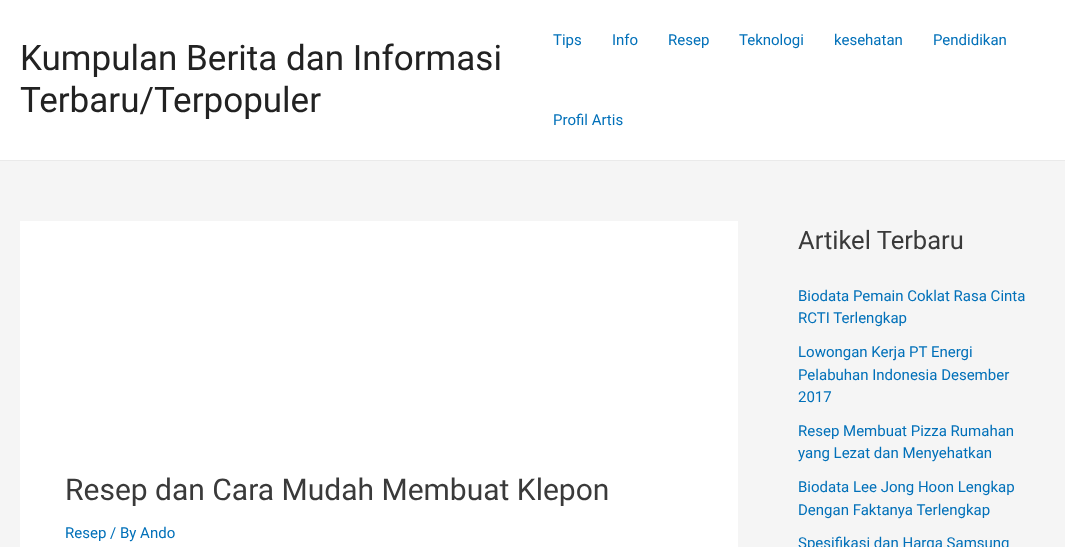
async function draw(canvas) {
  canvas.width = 1065
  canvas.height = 547
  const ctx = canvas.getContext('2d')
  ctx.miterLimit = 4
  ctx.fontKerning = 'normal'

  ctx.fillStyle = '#f5f5f5'
  ctx.fillRect(0, 0, 1065, 547)
  ctx.fillStyle = '#fff'
  ctx.fillRect(0, 0, 1065, 160)
  ctx.fillStyle = '#eaeaea'
  ctx.fillRect(0, 160, 1065, 1)
  ctx.font = '35px Roboto'
  ctx.fillStyle = '#222'
  ctx.fillText('Kumpulan Berita dan Informasi', 20, 70)
  ctx.fillText('Terbaru/Terpopuler', 20, 112)
  ctx.font = '15px Roboto'
  ctx.fillStyle = '#0170b9'
  ctx.fillText('Tips', 553, 45)
  ctx.fillText('Info', 612, 45)
  ctx.fillText('Resep', 668, 45)
  ctx.fillText('Teknologi', 739, 45)
  ctx.fillText('kesehatan', 834, 45)
  ctx.fillText('Pendidikan', 933, 45)
  ctx.fillText('Profil Artis', 553, 125)
  ctx.fillStyle = '#fff'
  ctx.fillRect(20, 221, 718, 326)
  ctx.font = '30px Roboto'
  ctx.fillStyle = '#3a3a3a'
  ctx.fillText('Resep dan Cara Mudah Membuat Klepon', 65, 500)
  ctx.font = '15px Roboto'
  ctx.fillStyle = '#0170b9'
  ctx.fillText('Resep / By Ando', 65, 538)
  ctx.font = '25.5px Roboto'
  ctx.fillStyle = '#3a3a3a'
  ctx.fillText('Artikel Terbaru', 798, 249)
  ctx.font = '15px Roboto'
  ctx.fillStyle = '#0170b9'
  ctx.fillText('Biodata Pemain Coklat Rasa Cinta', 798, 301)
  ctx.fillText('RCTI Terlengkap', 798, 323)
  ctx.fillText('Lowongan Kerja PT Energi', 798, 357)
  ctx.fillText('Pelabuhan Indonesia Desember', 798, 380)
  ctx.fillText('2017', 798, 402)
  ctx.fillText('Resep Membuat Pizza Rumahan', 798, 436)
  ctx.fillText('yang Lezat dan Menyehatkan', 798, 458)
  ctx.fillText('Biodata Lee Jong Hoon Lengkap', 798, 492)
  ctx.fillText('Dengan Faktanya Terlengkap', 798, 515)
  ctx.fillText('Spesifikasi dan Harga Samsung', 798, 548)
}

draw(document.querySelector('canvas'))
